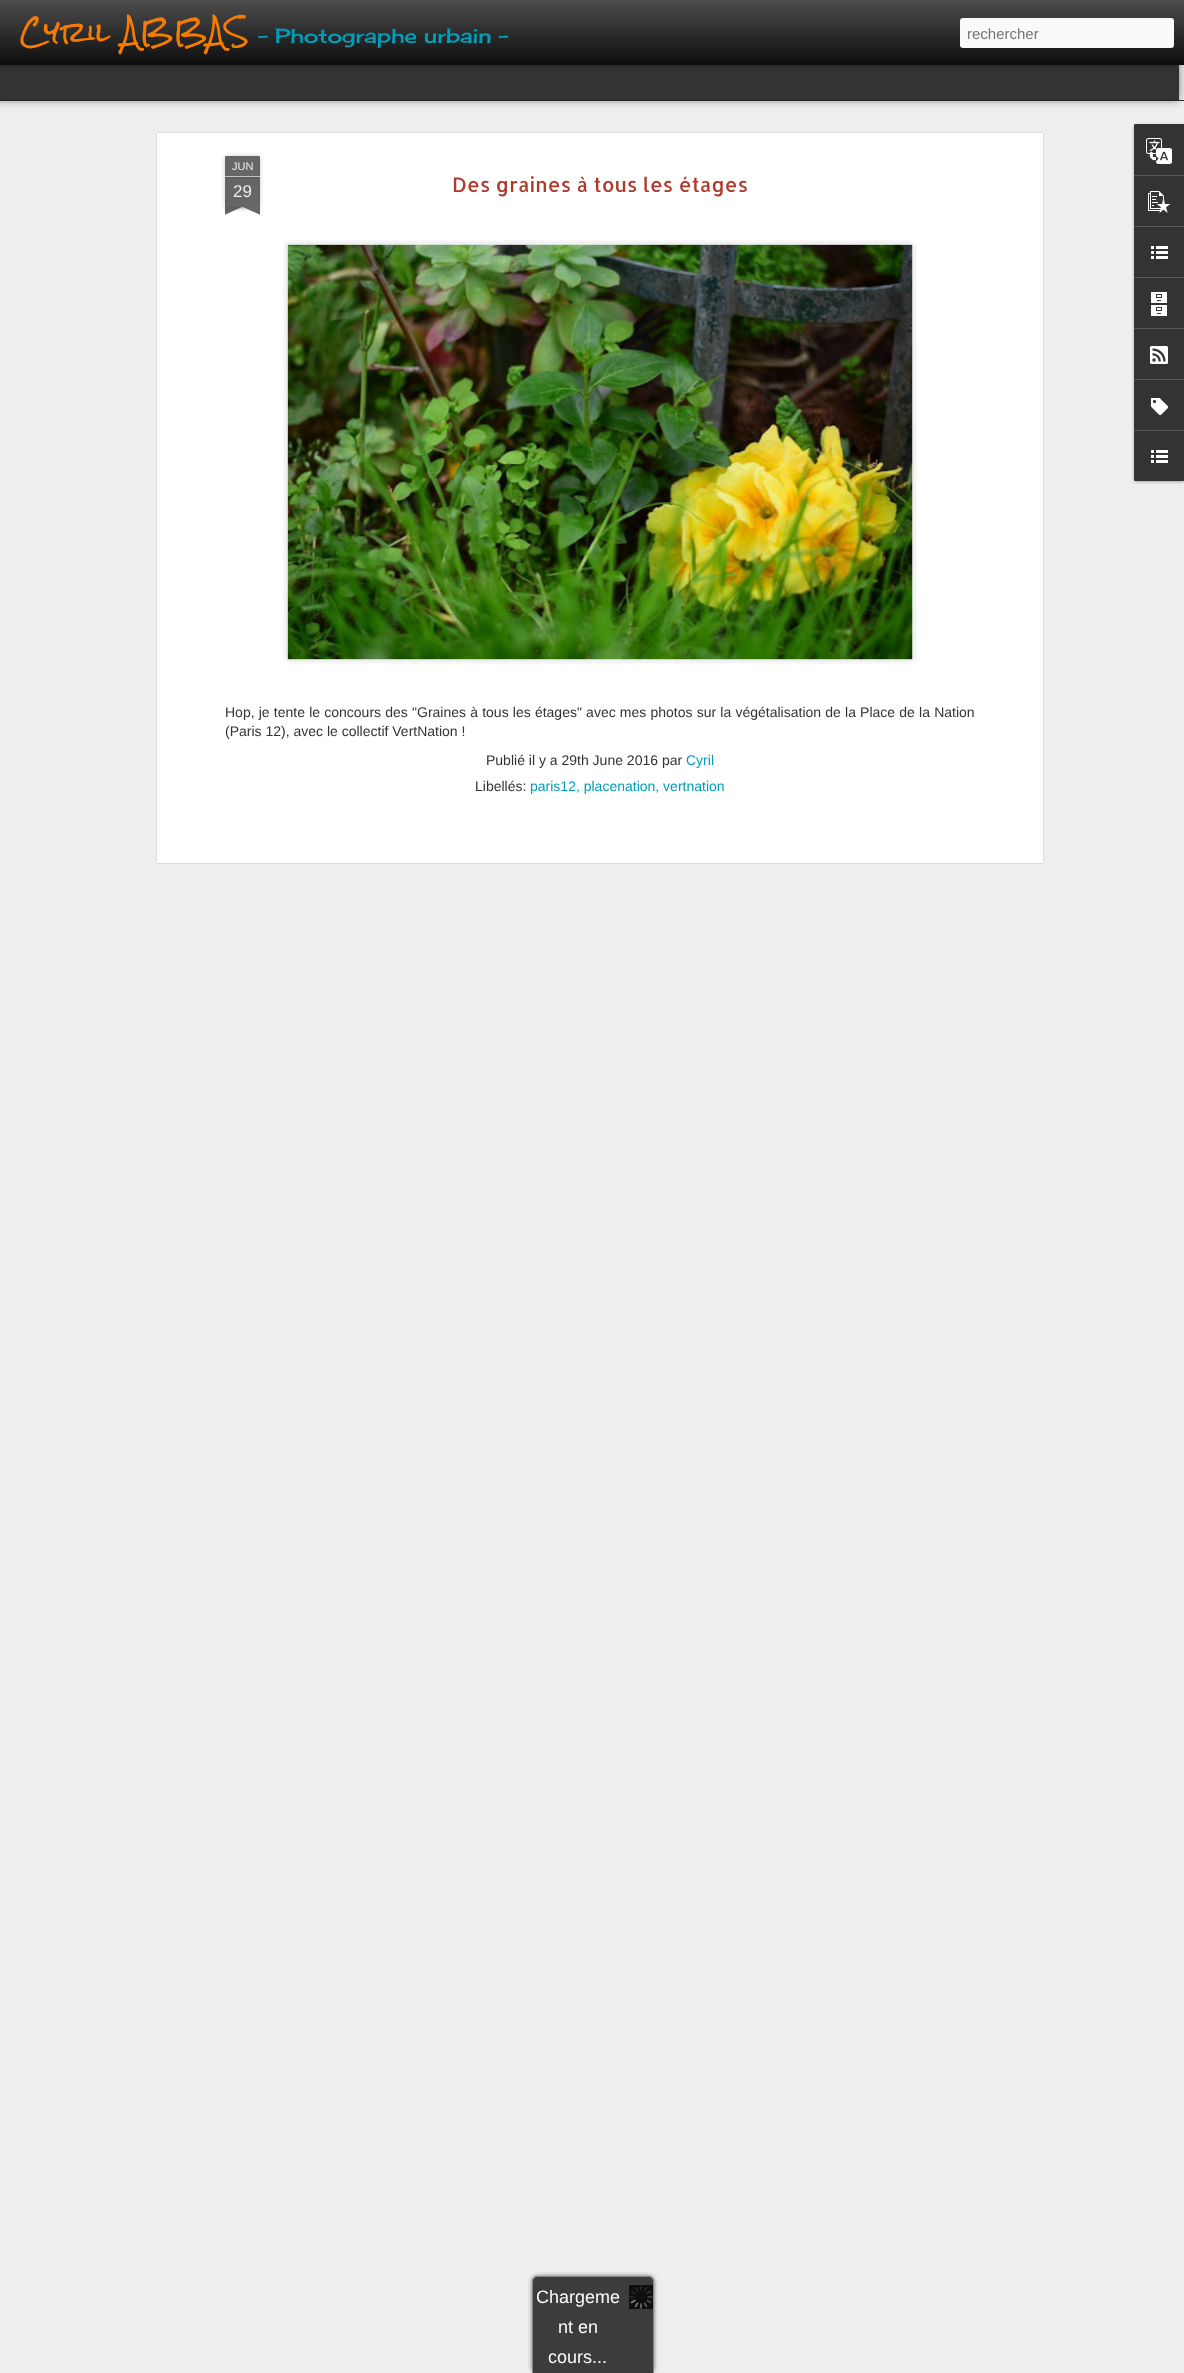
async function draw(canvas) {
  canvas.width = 1184
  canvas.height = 2373
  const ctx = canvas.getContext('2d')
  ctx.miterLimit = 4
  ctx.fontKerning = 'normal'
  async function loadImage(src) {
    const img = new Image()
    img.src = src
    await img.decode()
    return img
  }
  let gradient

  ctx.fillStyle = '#eee'
  ctx.fillRect(0, 0, 1184, 2373)
  ctx.fillStyle = '#333'
  ctx.fillRect(0, 100, 1184, 1)
  ctx.fillStyle = '#00000080'
  ctx.filter = 'blur(4px)'
  ctx.beginPath()
  ctx.rect(-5, 65, 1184, 35)
  ctx.fill()
  ctx.filter = 'none'
  ctx.fillStyle = '#333'
  ctx.fillRect(0, 65, 1179, 35)
  ctx.fillStyle = '#0000004d'
  ctx.filter = 'blur(2.5px)'
  ctx.beginPath()
  ctx.rect(0, 0, 1184, 65)
  ctx.fill()
  ctx.filter = 'none'
  gradient = ctx.createLinearGradient(0, 0, 0, 65)
  gradient.addColorStop(0, '#4d4d4d')
  gradient.addColorStop(1, '#0d0d0d')
  ctx.fillStyle = gradient
  ctx.fillRect(0, 0, 1184, 65)
  ctx.font = '28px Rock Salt'
  ctx.fillStyle = '#f57c00'
  ctx.fillText('Cyril ABBAS', 20, 43)
  ctx.font = '20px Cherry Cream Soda'
  ctx.fillStyle = '#009eb8'
  ctx.fillText('- Photographe urbain -', 258, 43)
  ctx.fillStyle = '#fafafa'
  ctx.beginPath()
  ctx.roundRect(960, 18, 214, 30, 3)
  ctx.fill()
  ctx.font = '15px Liberation Sans'
  ctx.fillStyle = '#757575'
  ctx.fillText('rechercher', 967, 39)
  ctx.fillStyle = '#fff'
  ctx.fillRect(155, 131, 890, 734)
  ctx.drawImage(await loadImage('image0.png'), 155, 131, 890, 734)
  ctx.fillStyle = '#00000033'
  ctx.filter = 'blur(2.5px)'
  ctx.beginPath()
  ctx.rect(225, 177, 35, 30)
  ctx.fill()
  ctx.filter = 'none'
  ctx.fillStyle = '#666'
  ctx.fillRect(225, 177, 35, 30)
  ctx.fillStyle = '#00000033'
  ctx.filter = 'blur(2.5px)'
  ctx.beginPath()
  ctx.roundRect(225, 156, 35, 21, 1)
  ctx.fill()
  ctx.filter = 'none'
  ctx.fillStyle = '#666'
  ctx.beginPath()
  ctx.roundRect(225, 156, 35, 21, [1, 1, 0, 0])
  ctx.fill()
  ctx.fillStyle = '#c2c2c2'
  ctx.fillRect(225, 176, 35, 1)
  ctx.font = '11px Liberation Sans'
  ctx.fillStyle = '#eee'
  ctx.fillText('JUN', 232, 170)
  ctx.font = '17px Liberation Sans'
  ctx.fillText('29', 233, 197)
  ctx.save()
  ctx.beginPath()
  ctx.rect(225, 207, 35, 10)
  ctx.clip()
  ctx.fillStyle = '#00000033'
  ctx.filter = 'blur(2.5px)'
  ctx.beginPath()
  ctx.rect(216, 197, 50, 10)
  ctx.fill()
  ctx.filter = 'none'
  ctx.restore()
  ctx.save()
  ctx.beginPath()
  ctx.rect(225, 207, 35, 10)
  ctx.clip()
  ctx.fillStyle = '#666'
  ctx.beginPath()
  ctx.moveTo(216, 208)
  ctx.lineTo(262, 187)
  ctx.lineTo(266, 196)
  ctx.lineTo(220, 217)
  ctx.closePath()
  ctx.fill()
  ctx.restore()
  ctx.save()
  ctx.beginPath()
  ctx.rect(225, 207, 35, 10)
  ctx.clip()
  ctx.fillStyle = '#00000033'
  ctx.filter = 'blur(2.5px)'
  ctx.beginPath()
  ctx.rect(219, 197, 50, 10)
  ctx.fill()
  ctx.filter = 'none'
  ctx.restore()
  ctx.save()
  ctx.beginPath()
  ctx.rect(225, 207, 35, 10)
  ctx.clip()
  ctx.fillStyle = '#666'
  ctx.beginPath()
  ctx.moveTo(223, 187)
  ctx.lineTo(269, 208)
  ctx.lineTo(265, 217)
  ctx.lineTo(219, 196)
  ctx.closePath()
  ctx.fill()
  ctx.restore()
  ctx.font = '20px Allerta'
  ctx.fillStyle = '#ad3a2b'
  ctx.fillText('Des graines à tous les étages', 452, 192)
  ctx.drawImage(await loadImage('image1.png'), 283, 240, 634, 424)
  ctx.drawImage(await loadImage('image2.png'), 287, 244, 626, 416)
  ctx.wordSpacing = '0.3px'
  ctx.font = '14px Liberation Sans'
  ctx.fillStyle = '#333'
  ctx.fillText('Hop, je tente le concours des "Graines à tous les étages" avec mes photos sur la végétalisation de la Place de la Nation', 225, 717)
  ctx.wordSpacing = '0px'
  ctx.fillText('(Paris 12), avec le collectif VertNation !', 225, 736)
  ctx.fillText('Publié il y a 29th June 2016 par', 486, 765)
  ctx.fillStyle = '#009eb8'
  ctx.fillText('Cyril', 686, 765)
  ctx.fillStyle = '#333'
  ctx.fillText('Libellés:', 475, 791)
  ctx.fillStyle = '#009eb8'
  ctx.fillText('paris12, placenation, vertnation', 530, 791)
  ctx.fillStyle = '#0000004d'
  ctx.filter = 'blur(1.5px)'
  ctx.beginPath()
  ctx.roundRect(1134, 125, 50, 357, 2)
  ctx.fill()
  ctx.filter = 'none'
  ctx.fillStyle = '#333'
  ctx.beginPath()
  ctx.roundRect(1134, 124, 50, 357, [2, 0, 0, 2])
  ctx.fill()
  ctx.beginPath()
  ctx.roundRect(1134, 124, 50, 51, [2, 0, 0, 0])
  ctx.fill()
  ctx.drawImage(await loadImage('image3.png'), 1146, 138, 26, 26)
  ctx.fillStyle = '#585858'
  ctx.fillRect(1134, 175, 50, 1)
  ctx.drawImage(await loadImage('image4.png'), 1148, 191, 22, 22)
  ctx.fillRect(1134, 226, 50, 1)
  ctx.drawImage(await loadImage('image5.png'), 1151, 246, 17, 13)
  ctx.fillRect(1134, 277, 50, 1)
  ctx.drawImage(await loadImage('image6.png'), 1151, 292, 16, 24)
  ctx.fillRect(1134, 328, 50, 1)
  ctx.drawImage(await loadImage('image7.png'), 1150, 346, 18, 18)
  ctx.fillRect(1134, 379, 50, 1)
  ctx.drawImage(await loadImage('image8.png'), 1151, 398, 17, 17)
  ctx.fillStyle = '#333'
  ctx.beginPath()
  ctx.roundRect(1134, 430, 50, 51, [0, 0, 0, 2])
  ctx.fill()
  ctx.fillStyle = '#585858'
  ctx.fillRect(1134, 430, 50, 1)
  ctx.drawImage(await loadImage('image5.png'), 1151, 450, 17, 13)
  ctx.fillStyle = '#626262'
  ctx.filter = 'blur(2px)'
  ctx.beginPath()
  ctx.roundRect(532, 2276, 122, 97, 6)
  ctx.fill()
  ctx.filter = 'none'
  ctx.fillStyle = '#3c3c3c'
  ctx.beginPath()
  ctx.roundRect(532, 2276, 122, 97, [6, 6, 0, 0])
  ctx.fill()
  ctx.fillStyle = '#888'
  ctx.beginPath()
  ctx.moveTo(538, 2276)
  ctx.lineTo(648, 2276)
  ctx.bezierCurveTo(651, 2276, 654, 2279, 654, 2282)
  ctx.lineTo(654, 2373)
  ctx.lineTo(532, 2373)
  ctx.lineTo(532, 2282)
  ctx.bezierCurveTo(532, 2279, 535, 2276, 538, 2276)
  ctx.closePath()
  ctx.moveTo(538, 2277)
  ctx.lineTo(648, 2277)
  ctx.bezierCurveTo(651, 2277, 653, 2279, 653, 2282)
  ctx.lineTo(653, 2373)
  ctx.lineTo(533, 2373)
  ctx.lineTo(533, 2282)
  ctx.bezierCurveTo(533, 2279, 535, 2277, 538, 2277)
  ctx.closePath()
  ctx.fill('evenodd')
  ctx.drawImage(await loadImage('image9.png'), 629, 2285, 24, 24)
  ctx.font = '18px Liberation Sans'
  ctx.fillStyle = '#fbfbfb'
  ctx.fillText('Chargeme', 536, 2303)
  ctx.fillText('nt en', 558, 2333)
  ctx.fillText('cours...', 548, 2363)
}

draw(document.querySelector('canvas'))
